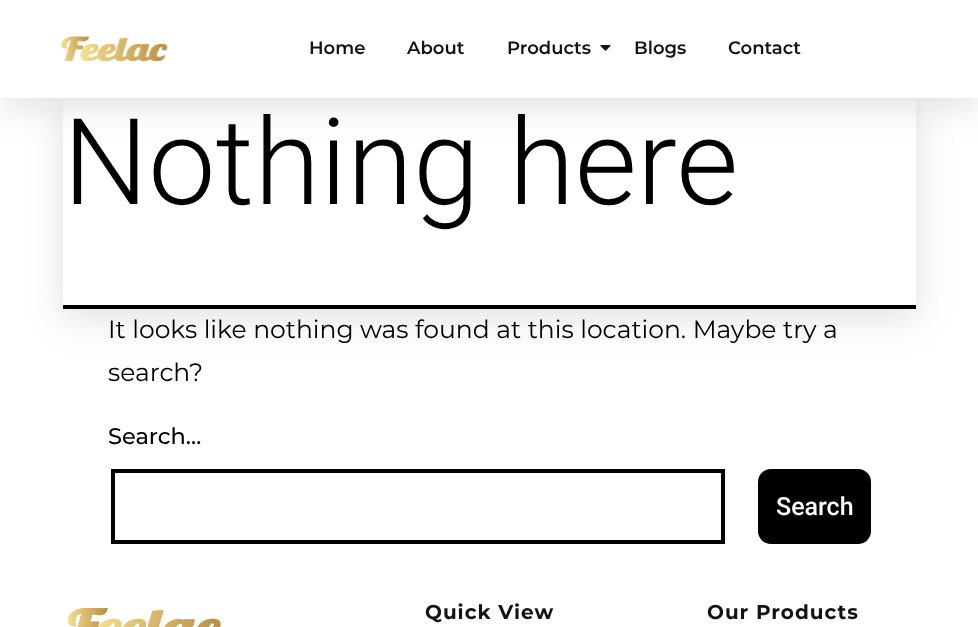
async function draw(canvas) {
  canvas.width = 978
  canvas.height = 627
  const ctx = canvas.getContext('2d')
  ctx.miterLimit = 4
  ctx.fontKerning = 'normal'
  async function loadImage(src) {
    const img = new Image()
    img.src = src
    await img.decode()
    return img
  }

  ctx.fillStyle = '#fff'
  ctx.fillRect(0, 0, 978, 627)
  ctx.fillStyle = '#64646f33'
  ctx.filter = 'blur(18px)'
  ctx.beginPath()
  ctx.rect(0, 9, 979, 97)
  ctx.fill()
  ctx.filter = 'none'
  ctx.save()
  ctx.beginPath()
  ctx.moveTo(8, 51)
  ctx.lineTo(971, 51)
  ctx.lineTo(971, 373)
  ctx.lineTo(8, 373)
  ctx.closePath()
  ctx.moveTo(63, 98)
  ctx.lineTo(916, 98)
  ctx.lineTo(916, 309)
  ctx.lineTo(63, 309)
  ctx.closePath()
  ctx.clip('evenodd')
  ctx.filter = 'blur(18px)'
  ctx.beginPath()
  ctx.rect(63, 106, 853, 212)
  ctx.fill()
  ctx.filter = 'none'
  ctx.restore()
  ctx.fillStyle = '#fff'
  ctx.fillRect(0, 0, 978, 98)
  ctx.drawImage(await loadImage('image0.png'), 61, 36, 107, 25)
  ctx.font = '600 18px Montserrat'
  ctx.fillStyle = '#131313'
  ctx.fillText('Home', 309, 54)
  ctx.fillText('About', 407, 54)
  ctx.fillText('Products', 507, 54)
  ctx.drawImage(await loadImage('image1.png'), 600, 45, 11, 6)
  ctx.fillText('Blogs', 634, 54)
  ctx.fillText('Contact', 728, 54)
  ctx.fillStyle = '#000'
  ctx.fillRect(63, 305, 853, 4)
  ctx.font = '300 120px Roboto'
  ctx.fillText('Nothing here', 63, 204)
  ctx.font = '25px Montserrat'
  ctx.fillText('It looks like nothing was found at this location. Maybe try a', 108, 338)
  ctx.fillText('search?', 108, 381)
  ctx.font = '500 22.5px Montserrat'
  ctx.fillText('Search…', 108, 444)
  ctx.strokeStyle = '#000'
  ctx.lineWidth = 4
  ctx.strokeRect(113, 471, 610, 71)
  ctx.beginPath()
  ctx.roundRect(758, 469, 113, 75, 13)
  ctx.fill()
  ctx.font = '500 25px Roboto'
  ctx.fillStyle = '#fff'
  ctx.fillText('Search', 776, 515)
  ctx.drawImage(await loadImage('image2.png'), 68, 608, 153, 19)
  ctx.letterSpacing = '1px'
  ctx.font = 'bold 20px Montserrat'
  ctx.fillStyle = '#131313'
  ctx.fillText('Quick View', 425, 619)
  ctx.fillText('Our Products', 707, 619)
}

draw(document.querySelector('canvas'))
